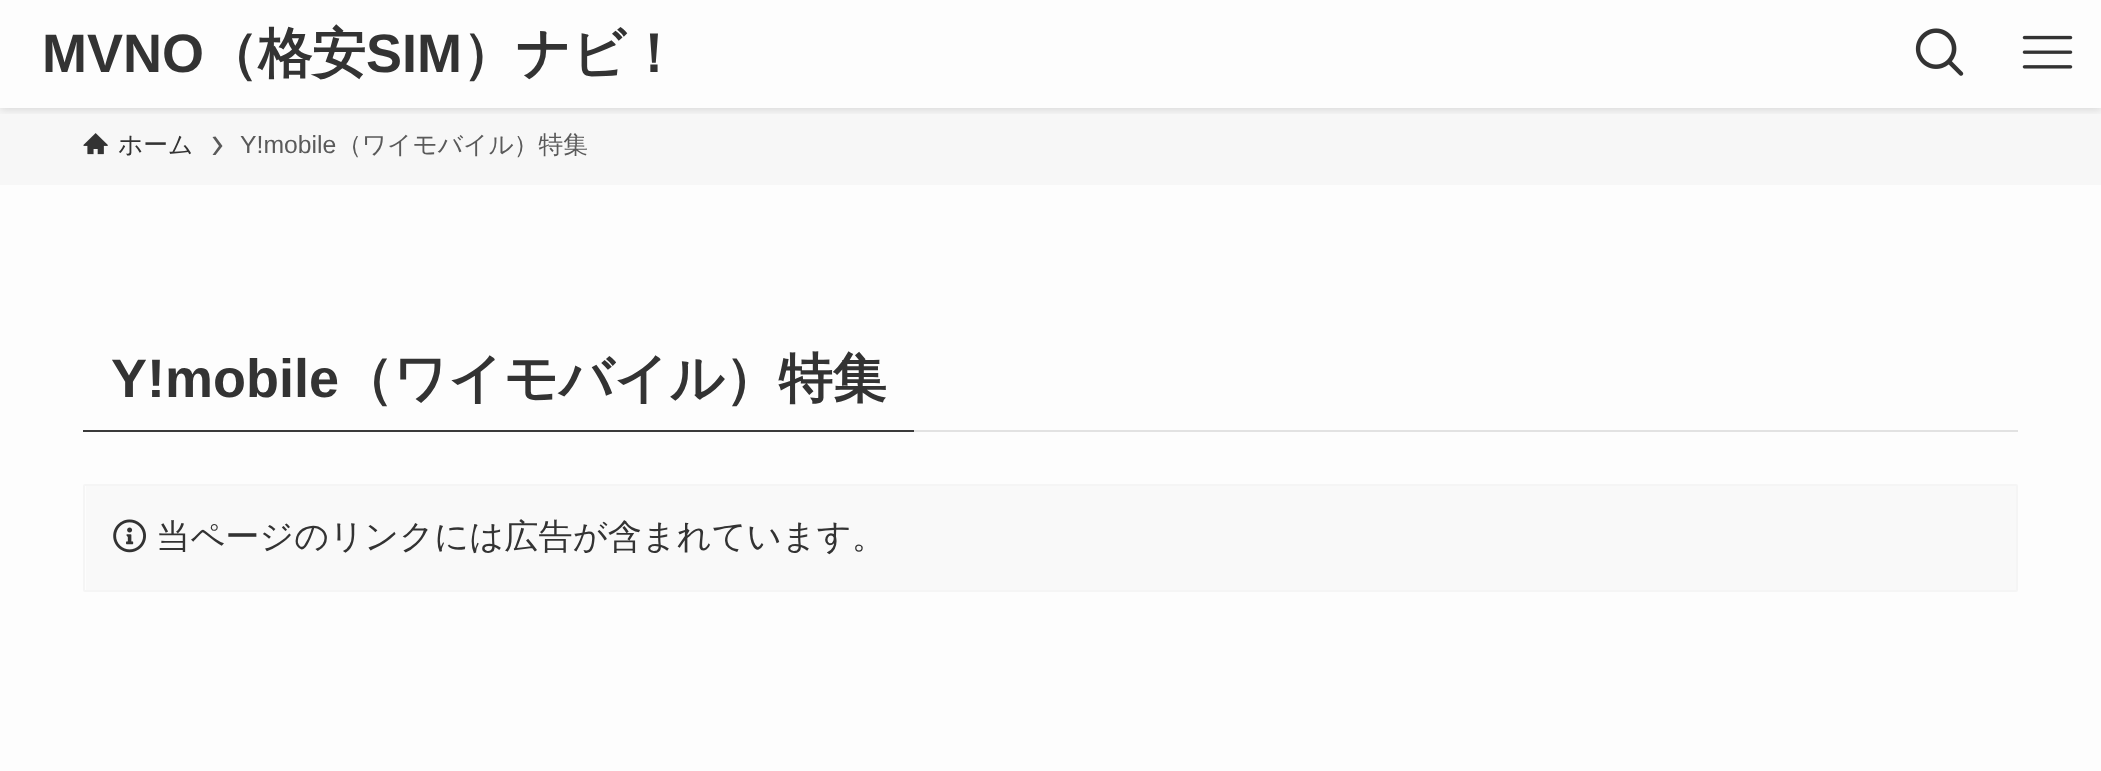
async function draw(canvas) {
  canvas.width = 2101
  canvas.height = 771
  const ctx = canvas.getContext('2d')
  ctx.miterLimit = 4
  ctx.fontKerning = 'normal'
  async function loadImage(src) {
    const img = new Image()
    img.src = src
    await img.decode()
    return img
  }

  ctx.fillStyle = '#fdfdfd'
  ctx.fillRect(0, 0, 2101, 771)
  ctx.fillStyle = '#f7f7f7'
  ctx.fillRect(0, 108, 2101, 77)
  ctx.save()
  ctx.beginPath()
  ctx.rect(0, 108, 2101, 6)
  ctx.clip()
  ctx.fillStyle = '#0000001f'
  ctx.filter = 'blur(4.5px)'
  ctx.beginPath()
  ctx.rect(0, 2, 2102, 108)
  ctx.fill()
  ctx.filter = 'none'
  ctx.restore()
  ctx.font = 'bold 54px Liberation Sans'
  ctx.fillStyle = '#333'
  ctx.fillText('MVNO', 42, 72)
  ctx.font = 'bold 54px WenQuanYi Zen Hei'
  ctx.fillText('（格安', 204, 72)
  ctx.font = 'bold 54px Liberation Sans'
  ctx.fillText('SIM', 366, 72)
  ctx.font = 'bold 54px WenQuanYi Zen Hei'
  ctx.fillText('）ナビ！', 462, 72)
  ctx.drawImage(await loadImage('image0.png'), 1915, 28, 49, 48)
  ctx.drawImage(await loadImage('image1.png'), 2022, 35, 51, 34)
  ctx.drawImage(await loadImage('image2.png'), 83, 133, 25, 22)
  ctx.font = '500 24.75px WenQuanYi Zen Hei'
  ctx.fillText('ホーム', 118, 153)
  ctx.fillStyle = '#5a5a5a'
  ctx.beginPath()
  ctx.moveTo(215.5, 136.5)
  ctx.lineTo(212.5, 137)
  ctx.lineTo(219, 146)
  ctx.lineTo(212.5, 155)
  ctx.lineTo(215.5, 155)
  ctx.lineTo(222.5, 146)
  ctx.closePath()
  ctx.fill()
  ctx.font = '24.75px Liberation Sans'
  ctx.fillText('Y!mobile', 240, 153)
  ctx.font = '500 24.75px WenQuanYi Zen Hei'
  ctx.fillText('（ワイモバイル）特集', 337, 153)
  ctx.fillStyle = '#e2e2e2'
  ctx.fillRect(914, 430, 1104, 2)
  ctx.fillStyle = '#3a3a3a'
  ctx.fillRect(83, 430, 831, 2)
  ctx.font = 'bold 54px Liberation Sans'
  ctx.fillStyle = '#333'
  ctx.fillText('Y!mobile', 111, 397)
  ctx.font = 'bold 54px WenQuanYi Zen Hei'
  ctx.fillText('（ワイモバイル）特集', 339, 397)
  ctx.fillStyle = '#f9f9f9'
  ctx.fillRect(86, 486, 1930, 104)
  ctx.beginPath()
  ctx.roundRect(84, 485, 1933, 106, 1)
  ctx.strokeStyle = '#f5f5f5'
  ctx.lineWidth = 2
  ctx.stroke()
  ctx.drawImage(await loadImage('image3.png'), 113, 519, 33, 34)
  ctx.font = '500 34.2px WenQuanYi Zen Hei'
  ctx.fillStyle = '#333'
  ctx.fillText('当ページのリンクには広告が含まれています。', 156, 548)
}

draw(document.querySelector('canvas'))
